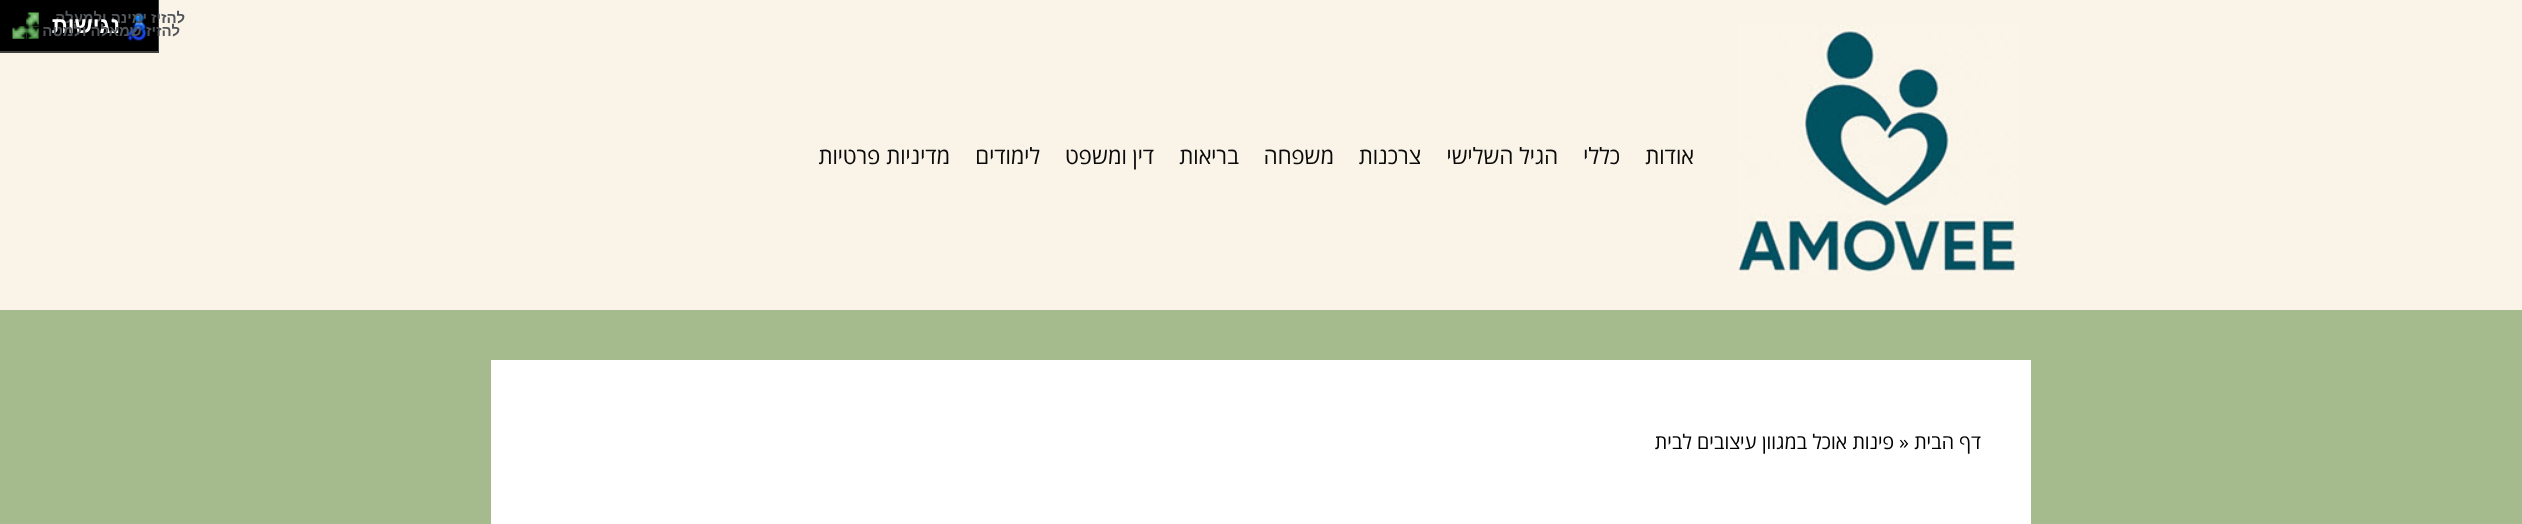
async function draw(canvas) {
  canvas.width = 2522
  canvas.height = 524
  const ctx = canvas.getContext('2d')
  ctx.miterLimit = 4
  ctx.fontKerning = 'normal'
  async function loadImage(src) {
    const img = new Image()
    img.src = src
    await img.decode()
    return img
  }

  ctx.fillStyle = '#a6bb8d'
  ctx.fillRect(0, 0, 2522, 524)
  ctx.fillStyle = '#faf4e8'
  ctx.fillRect(0, 0, 2522, 310)
  ctx.fillStyle = '#000'
  ctx.fillRect(0, 0, 158, 51)
  ctx.save()
  ctx.beginPath()
  ctx.rect(0, 0, 159, 53)
  ctx.clip()
  ctx.fillStyle = '#404040'
  ctx.beginPath()
  ctx.moveTo(-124, -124)
  ctx.lineTo(282, -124)
  ctx.lineTo(282, 176)
  ctx.lineTo(-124, 176)
  ctx.closePath()
  ctx.moveTo(-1, -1)
  ctx.lineTo(158, -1)
  ctx.lineTo(158, 51)
  ctx.lineTo(-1, 51)
  ctx.closePath()
  ctx.fill('evenodd')
  ctx.restore()
  ctx.drawImage(await loadImage('image0.png'), 26, 12, 13, 15)
  ctx.drawImage(await loadImage('image3.png'), 127, 13, 20, 28)
  ctx.direction = 'rtl'
  ctx.font = 'bold 15px Liberation Sans'
  ctx.fillStyle = '#52565a'
  ctx.fillText('להזיז ימינה ולמעלה', 185, 23)
  ctx.drawImage(await loadImage('image1.png'), 12, 26, 15, 13)
  ctx.font = 'bold 22.5px Liberation Sans'
  ctx.fillStyle = '#fff'
  ctx.fillText('נגישות', 120, 33)
  ctx.font = 'bold 15px Liberation Sans'
  ctx.fillStyle = '#52565a'
  ctx.fillText('להזיז שמאלה ולמטה', 180, 36)
  ctx.drawImage(await loadImage('image2.png'), 26, 26, 13, 13)
  ctx.drawImage(await loadImage('image4.png'), 1738, 25, 281, 250)
  ctx.font = '22.5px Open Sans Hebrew'
  ctx.fillStyle = '#0a0a0a'
  ctx.fillText('אודות', 1694, 164)
  ctx.fillText('כללי', 1620, 164)
  ctx.fillText('הגיל השלישי', 1558, 164)
  ctx.fillText('צרכנות', 1421, 164)
  ctx.fillText('משפחה', 1334, 164)
  ctx.fillText('בריאות', 1239, 164)
  ctx.fillText('דין ומשפט', 1154, 164)
  ctx.fillText('לימודים', 1040, 164)
  ctx.fillText('מדיניות פרטיות', 950, 164)
  ctx.fillStyle = '#fff'
  ctx.fillRect(491, 360, 1540, 164)
  ctx.font = '20px Open Sans Hebrew'
  ctx.fillStyle = '#000'
  ctx.fillText('דף הבית', 1981, 449)
  ctx.direction = 'ltr'
  ctx.fillText('»', 1899, 449)
  ctx.direction = 'rtl'
  ctx.fillText('פינות אוכל במגוון עיצובים לבית', 1894, 449)
}

draw(document.querySelector('canvas'))
